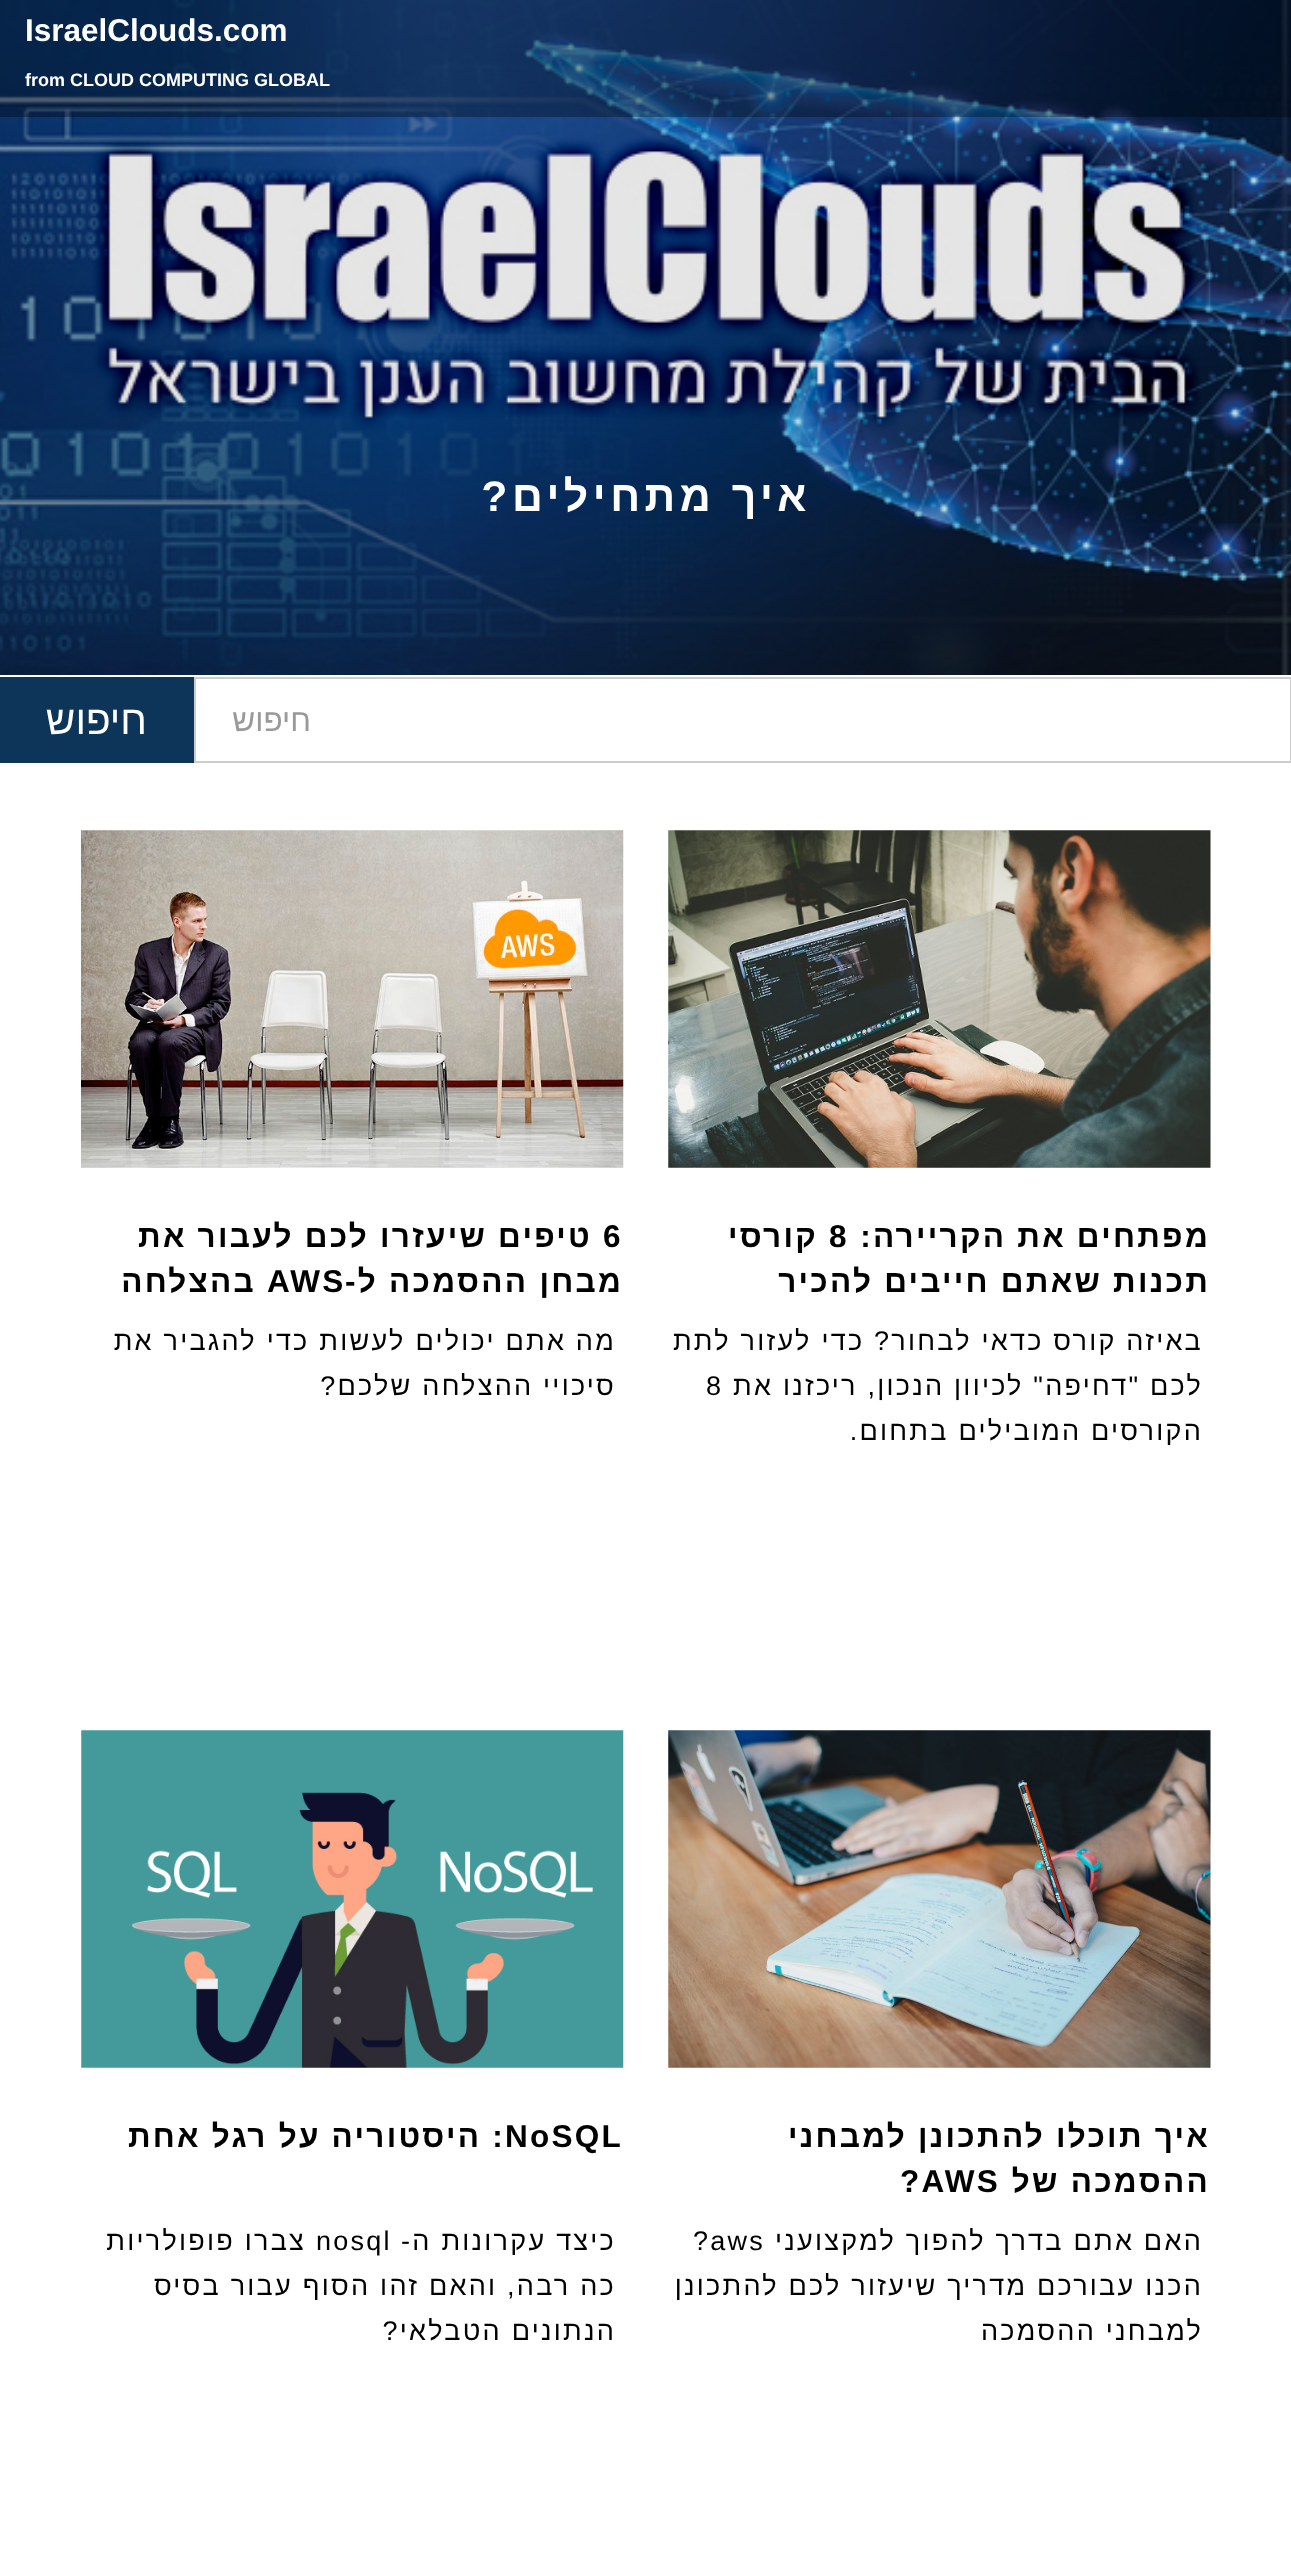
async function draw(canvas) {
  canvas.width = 1291
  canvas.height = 2557
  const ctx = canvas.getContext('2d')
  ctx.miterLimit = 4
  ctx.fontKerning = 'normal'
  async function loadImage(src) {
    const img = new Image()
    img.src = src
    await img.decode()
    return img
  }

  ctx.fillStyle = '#fff'
  ctx.fillRect(0, 0, 1291, 2557)
  ctx.drawImage(await loadImage('image0.png'), 0, 0, 1291, 675)
  ctx.fillStyle = '#00000054'
  ctx.fillRect(0, 0, 1291, 117)
  ctx.font = 'bold 31.5px Liberation Sans'
  ctx.fillStyle = '#fff'
  ctx.fillText('IsraelClouds.com', 25, 41)
  ctx.font = 'bold 18px Liberation Sans'
  ctx.fillText('from CLOUD COMPUTING GLOBAL', 25, 86)
  ctx.letterSpacing = '4.5px'
  ctx.direction = 'rtl'
  ctx.font = 'bold 42.75px Liberation Sans'
  ctx.fillText('איך מתחילים?', 811, 511)
  ctx.strokeStyle = '#ccc'
  ctx.lineWidth = 2
  ctx.strokeRect(195, 678, 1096, 84)
  ctx.letterSpacing = '0px'
  ctx.font = '31.5px Liberation Sans'
  ctx.fillStyle = '#999'
  ctx.fillText('חיפוש', 311, 731)
  ctx.fillStyle = '#0c3559'
  ctx.fillRect(0, 677, 194, 86)
  ctx.font = '40.5px Liberation Sans'
  ctx.fillStyle = '#fff'
  ctx.fillText('חיפוש', 147, 734)
  ctx.drawImage(await loadImage('image1.png'), 668, 830, 543, 338)
  ctx.letterSpacing = '2.25px'
  ctx.font = 'bold 31.5px Liberation Sans'
  ctx.fillStyle = '#000'
  ctx.fillText('מפתחים את הקריירה:', 1210, 1247)
  ctx.direction = 'ltr'
  ctx.fillText('8', 829, 1247)
  ctx.direction = 'rtl'
  ctx.fillText('קורסי', 818, 1247)
  ctx.fillText('תכנות שאתם חייבים להכיר', 1210, 1292)
  ctx.font = '27px Liberation Sans'
  ctx.fillText('באיזה קורס כדאי לבחור? כדי לעזור לתת', 1203, 1350)
  ctx.fillText('לכם "דחיפה" לכיוון הנכון, ריכזנו את', 1203, 1395)
  ctx.direction = 'ltr'
  ctx.fillText('8', 706, 1395)
  ctx.direction = 'rtl'
  ctx.fillText('הקורסים המובילים בתחום.', 1203, 1440)
  ctx.drawImage(await loadImage('image2.png'), 81, 830, 543, 338)
  ctx.direction = 'ltr'
  ctx.font = 'bold 31.5px Liberation Sans'
  ctx.fillText('6', 603, 1247)
  ctx.direction = 'rtl'
  ctx.fillText('טיפים שיעזרו לכם לעבור את', 592, 1247)
  ctx.fillText('מבחן ההסמכה ל-', 623, 1292)
  ctx.direction = 'ltr'
  ctx.fillText('AWS', 267, 1292)
  ctx.direction = 'rtl'
  ctx.fillText('בהצלחה', 256, 1292)
  ctx.font = '27px Liberation Sans'
  ctx.fillText('מה אתם יכולים לעשות כדי להגביר את', 616, 1350)
  ctx.fillText('סיכויי ההצלחה שלכם?', 616, 1395)
  ctx.drawImage(await loadImage('image3.png'), 668, 1730, 543, 338)
  ctx.font = 'bold 31.5px Liberation Sans'
  ctx.fillText('איך תוכלו להתכונן למבחני', 1210, 2147)
  ctx.fillText('ההסמכה של', 1210, 2192)
  ctx.direction = 'ltr'
  ctx.fillText('?AWS', 900, 2192)
  ctx.direction = 'rtl'
  ctx.font = '27px Liberation Sans'
  ctx.fillText('האם אתם בדרך להפוך למקצועני', 1203, 2250)
  ctx.direction = 'ltr'
  ctx.fillText('?aws', 693, 2250)
  ctx.direction = 'rtl'
  ctx.fillText('הכנו עבורכם מדריך שיעזור לכם להתכונן', 1203, 2295)
  ctx.fillText('למבחני ההסמכה', 1203, 2340)
  ctx.drawImage(await loadImage('image4.png'), 81, 1730, 543, 338)
  ctx.direction = 'ltr'
  ctx.font = 'bold 31.5px Liberation Sans'
  ctx.fillText('NoSQL', 505, 2147)
  ctx.direction = 'rtl'
  ctx.fillText(': היסטוריה על רגל אחת', 505, 2147)
  ctx.font = '27px Liberation Sans'
  ctx.fillText('כיצד עקרונות ה-', 616, 2250)
  ctx.direction = 'ltr'
  ctx.fillText('nosql', 316, 2250)
  ctx.direction = 'rtl'
  ctx.fillText('צברו פופולריות', 306, 2250)
  ctx.fillText('כה רבה, והאם זהו הסוף עבור בסיס', 616, 2295)
  ctx.fillText('הנתונים הטבלאי?', 616, 2340)
}

draw(document.querySelector('canvas'))
